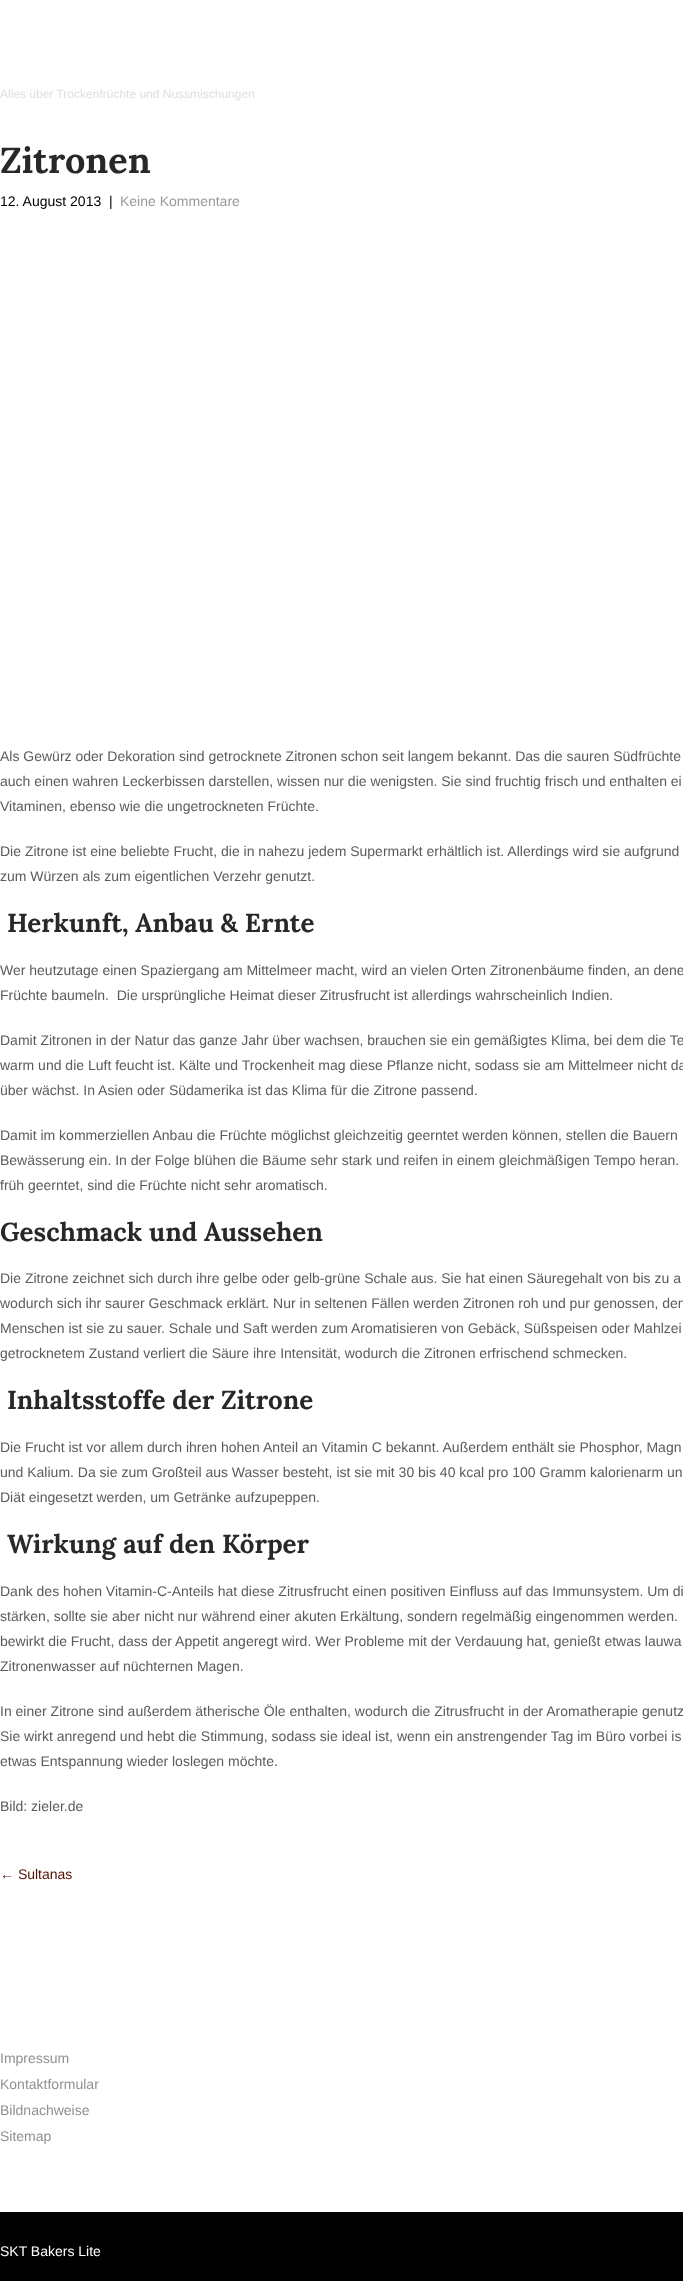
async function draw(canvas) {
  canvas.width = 683
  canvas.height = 2295
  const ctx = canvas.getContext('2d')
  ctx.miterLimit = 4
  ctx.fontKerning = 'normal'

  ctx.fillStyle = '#fff'
  ctx.fillRect(0, 0, 683, 2295)
  ctx.font = '12px Liberation Sans'
  ctx.fillStyle = '#dedede'
  ctx.fillText('Alles über Trockenfrüchte und Nussmischungen', 0, 98)
  ctx.font = 'bold 36px Lora'
  ctx.fillStyle = '#282828'
  ctx.fillText('Zitronen', 0, 173)
  ctx.font = '14px Liberation Sans'
  ctx.fillStyle = '#000'
  ctx.fillText('12. August 2013', 0, 206)
  ctx.fillText('|', 109, 206)
  ctx.fillStyle = '#999'
  ctx.fillText('Keine Kommentare', 120, 206)
  ctx.fillStyle = '#5c5b5b'
  ctx.fillText('Als Gewürz oder Dekoration sind getrocknete Zitronen schon seit langem bekannt. Das die sauren Südfrüchte', 0, 761)
  ctx.fillText('auch einen wahren Leckerbissen darstellen, wissen nur die wenigsten. Sie sind fruchtig frisch und enthalten ei', 0, 786)
  ctx.fillText('Vitaminen, ebenso wie die ungetrockneten Früchte.', 0, 811)
  ctx.fillText('Die Zitrone ist eine beliebte Frucht, die in nahezu jedem Supermarkt erhältlich ist. Allerdings wird sie aufgrund', 0, 856)
  ctx.fillText('zum Würzen als zum eigentlichen Verzehr genutzt.', 0, 881)
  ctx.font = 'bold 26px Lora'
  ctx.fillStyle = '#282828'
  ctx.fillText('Herkunft, Anbau & Ernte', 7, 932)
  ctx.font = '14px Liberation Sans'
  ctx.fillStyle = '#5c5b5b'
  ctx.fillText('Wer heutzutage einen Spaziergang am Mittelmeer macht, wird an vielen Orten Zitronenbäume finden, an dene', 0, 975)
  ctx.fillText('Früchte baumeln.  Die ursprüngliche Heimat dieser Zitrusfrucht ist allerdings wahrscheinlich Indien.', 0, 1000)
  ctx.fillText('Damit Zitronen in der Natur das ganze Jahr über wachsen, brauchen sie ein gemäßigtes Klima, bei dem die Te', 0, 1045)
  ctx.fillText('warm und die Luft feucht ist. Kälte und Trockenheit mag diese Pflanze nicht, sodass sie am Mittelmeer nicht da', 0, 1070)
  ctx.fillText('über wächst. In Asien oder Südamerika ist das Klima für die Zitrone passend.', 0, 1095)
  ctx.fillText('Damit im kommerziellen Anbau die Früchte möglichst gleichzeitig geerntet werden können, stellen die Bauern', 0, 1140)
  ctx.fillText('Bewässerung ein. In der Folge blühen die Bäume sehr stark und reifen in einem gleichmäßigen Tempo heran.', 0, 1165)
  ctx.fillText('früh geerntet, sind die Früchte nicht sehr aromatisch.', 0, 1190)
  ctx.font = 'bold 26px Lora'
  ctx.fillStyle = '#282828'
  ctx.fillText('Geschmack und Aussehen', 0, 1241)
  ctx.font = '14px Liberation Sans'
  ctx.fillStyle = '#5c5b5b'
  ctx.fillText('Die Zitrone zeichnet sich durch ihre gelbe oder gelb-grüne Schale aus. Sie hat einen Säuregehalt von bis zu a', 0, 1283)
  ctx.fillText('wodurch sich ihr saurer Geschmack erklärt. Nur in seltenen Fällen werden Zitronen roh und pur genossen, den', 0, 1308)
  ctx.fillText('Menschen ist sie zu sauer. Schale und Saft werden zum Aromatisieren von Gebäck, Süßspeisen oder Mahlzei', 0, 1333)
  ctx.fillText('getrocknetem Zustand verliert die Säure ihre Intensität, wodurch die Zitronen erfrischend schmecken.', 0, 1358)
  ctx.font = 'bold 26px Lora'
  ctx.fillStyle = '#282828'
  ctx.fillText('Inhaltsstoffe der Zitrone', 7, 1409)
  ctx.font = '14px Liberation Sans'
  ctx.fillStyle = '#5c5b5b'
  ctx.fillText('Die Frucht ist vor allem durch ihren hohen Anteil an Vitamin C bekannt. Außerdem enthält sie Phosphor, Magn', 0, 1452)
  ctx.fillText('und Kalium. Da sie zum Großteil aus Wasser besteht, ist sie mit 30 bis 40 kcal pro 100 Gramm kalorienarm un', 0, 1477)
  ctx.fillText('Diät eingesetzt werden, um Getränke aufzupeppen.', 0, 1502)
  ctx.font = 'bold 26px Lora'
  ctx.fillStyle = '#282828'
  ctx.fillText('Wirkung auf den Körper', 7, 1553)
  ctx.font = '14px Liberation Sans'
  ctx.fillStyle = '#5c5b5b'
  ctx.fillText('Dank des hohen Vitamin-C-Anteils hat diese Zitrusfrucht einen positiven Einfluss auf das Immunsystem. Um di', 0, 1596)
  ctx.fillText('stärken, sollte sie aber nicht nur während einer akuten Erkältung, sondern regelmäßig eingenommen werden.', 0, 1621)
  ctx.fillText('bewirkt die Frucht, dass der Appetit angeregt wird. Wer Probleme mit der Verdauung hat, genießt etwas lauwa', 0, 1646)
  ctx.fillText('Zitronenwasser auf nüchternen Magen.', 0, 1671)
  ctx.fillText('In einer Zitrone sind außerdem ätherische Öle enthalten, wodurch die Zitrusfrucht in der Aromatherapie genutz', 0, 1716)
  ctx.fillText('Sie wirkt anregend und hebt die Stimmung, sodass sie ideal ist, wenn ein anstrengender Tag im Büro vorbei is', 0, 1741)
  ctx.fillText('etwas Entspannung wieder loslegen möchte.', 0, 1766)
  ctx.fillText('Bild: zieler.de', 0, 1811)
  ctx.fillStyle = '#531000'
  ctx.fillText('← Sultanas', 0, 1879)
  ctx.fillStyle = '#919090'
  ctx.fillText('Impressum', 0, 2063)
  ctx.fillText('Kontaktformular', 0, 2089)
  ctx.fillText('Bildnachweise', 0, 2115)
  ctx.fillText('Sitemap', 0, 2141)
  ctx.fillStyle = '#000'
  ctx.fillRect(0, 2212, 683, 69)
  ctx.fillStyle = '#fff'
  ctx.fillText('SKT Bakers Lite', 0, 2256)
}

draw(document.querySelector('canvas'))
